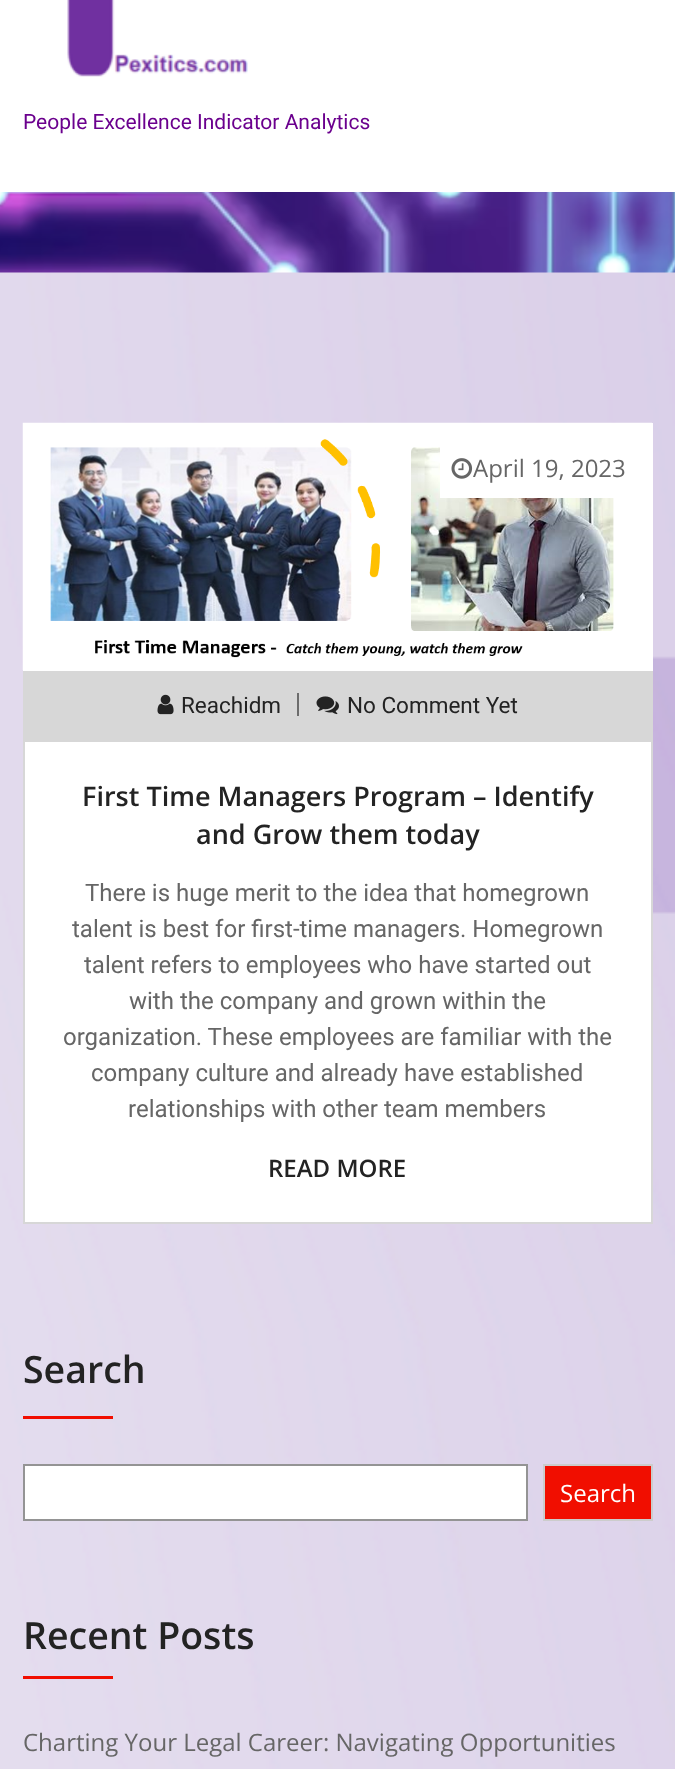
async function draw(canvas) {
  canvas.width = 675
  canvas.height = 1769
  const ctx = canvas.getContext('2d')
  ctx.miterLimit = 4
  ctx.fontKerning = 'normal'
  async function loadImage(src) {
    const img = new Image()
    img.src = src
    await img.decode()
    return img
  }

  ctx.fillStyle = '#fff'
  ctx.fillRect(0, 0, 675, 1769)
  ctx.drawImage(await loadImage('image0.png'), 0, 272, 675, 1497)
  ctx.drawImage(await loadImage('image1.png'), 67, 0, 181, 77)
  ctx.font = '21px Roboto'
  ctx.fillStyle = '#6b008e'
  ctx.fillText('People Excellence Indicator Analytics', 23, 129)
  ctx.drawImage(await loadImage('image2.png'), 0, 192, 675, 81)
  ctx.fillStyle = '#fff'
  ctx.fillRect(23, 423, 630, 799)
  ctx.drawImage(await loadImage('image3.png'), 22, 422, 630, 248)
  ctx.fillRect(440, 447, 174, 51)
  ctx.drawImage(await loadImage('image4.png'), 451, 458, 22, 21)
  ctx.font = '24px Open Sans'
  ctx.fillStyle = '#666'
  ctx.fillText('April 19, 2023', 473, 477)
  ctx.fillStyle = '#d7d7d7'
  ctx.fillRect(23, 671, 630, 69)
  ctx.drawImage(await loadImage('image5.png'), 157, 694, 17, 21)
  ctx.font = '22.5px Roboto'
  ctx.fillStyle = '#232323'
  ctx.fillText('Reachidm', 181, 713)
  ctx.fillStyle = '#6c6c6c'
  ctx.fillRect(297, 693, 2, 23)
  ctx.drawImage(await loadImage('image6.png'), 316, 696, 23, 19)
  ctx.fillStyle = '#232323'
  ctx.fillText('No Comment Yet', 347, 713)
  ctx.strokeStyle = '#d7d7d7'
  ctx.lineWidth = 2
  ctx.strokeRect(24, 741, 628, 482)
  ctx.font = '600 27px Open Sans'
  ctx.fillText('First Time Managers Program – Identify', 82, 806)
  ctx.fillText('and Grow them today', 196, 844)
  ctx.font = '24px Roboto'
  ctx.fillStyle = '#666'
  ctx.fillText('There is huge merit to the idea that homegrown', 85, 901)
  ctx.fillText('talent is best for first-time managers. Homegrown', 72, 937)
  ctx.fillText('talent refers to employees who have started out', 84, 973)
  ctx.fillText('with the company and grown within the', 129, 1009)
  ctx.fillText('organization. These employees are familiar with the', 63, 1045)
  ctx.fillText('company culture and already have established', 91, 1081)
  ctx.fillText('relationships with other team members', 128, 1117)
  ctx.font = '600 24px Open Sans'
  ctx.fillStyle = '#232323'
  ctx.fillText('READ MORE', 268, 1177)
  ctx.font = '600 37.5px Open Sans'
  ctx.fillText('Search', 23, 1383)
  ctx.fillStyle = '#f10e00'
  ctx.fillRect(23, 1416, 90, 3)
  ctx.fillStyle = '#fff'
  ctx.beginPath()
  ctx.rect(24, 1465, 503, 55)
  ctx.fill()
  ctx.strokeStyle = '#949494'
  ctx.stroke()
  ctx.fillStyle = '#f10e00'
  ctx.beginPath()
  ctx.rect(544, 1465, 108, 55)
  ctx.fill()
  ctx.strokeStyle = '#ccc'
  ctx.stroke()
  ctx.font = '24px Open Sans'
  ctx.fillStyle = '#fff'
  ctx.fillText('Search', 560, 1502)
  ctx.font = '600 37.5px Open Sans'
  ctx.fillStyle = '#232323'
  ctx.fillText('Recent Posts', 23, 1649)
  ctx.fillStyle = '#f10e00'
  ctx.fillRect(23, 1676, 90, 3)
  ctx.font = '24px Open Sans'
  ctx.fillStyle = '#666'
  ctx.fillText('Charting Your Legal Career: Navigating Opportunities', 23, 1751)
}

draw(document.querySelector('canvas'))
